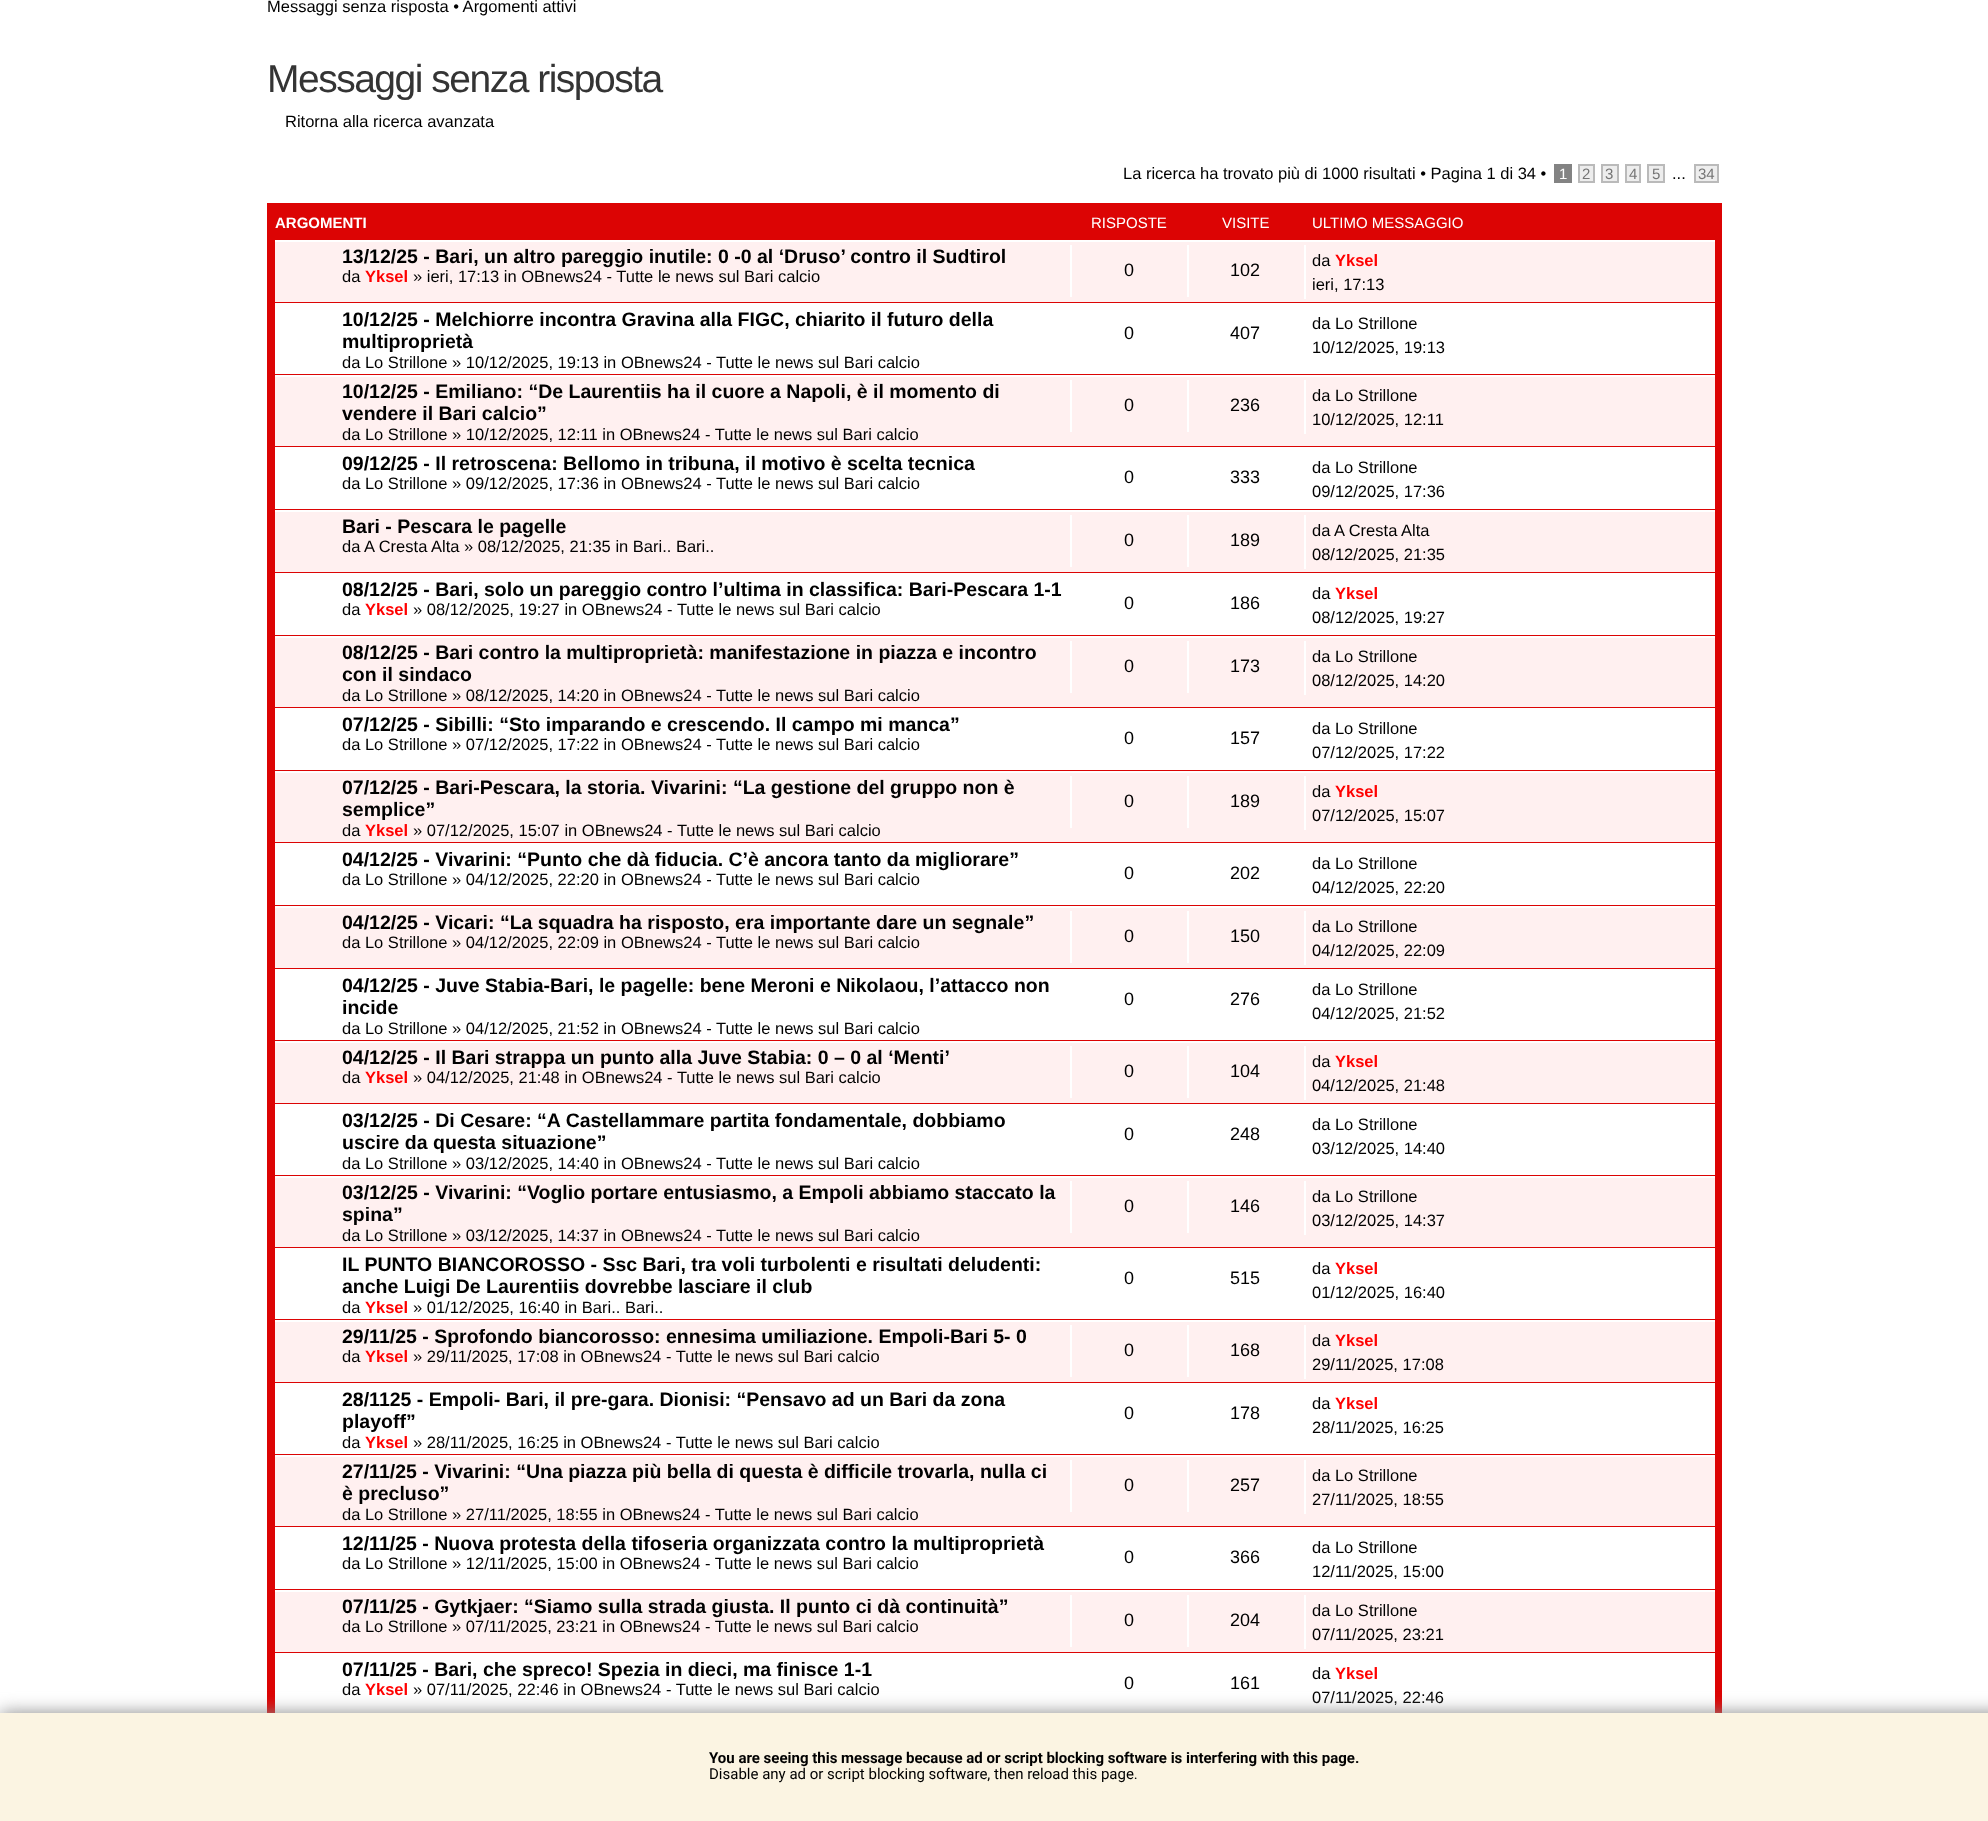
async function draw(canvas) {
  canvas.width = 1988
  canvas.height = 1821
  const ctx = canvas.getContext('2d')
  ctx.miterLimit = 4
  ctx.fontKerning = 'normal'

  ctx.fillStyle = '#fff'
  ctx.fillRect(0, 0, 1988, 1821)
  ctx.font = '16.5px Liberation Sans'
  ctx.fillStyle = '#000'
  ctx.fillText('Messaggi senza risposta • Argomenti attivi', 267, 12)
  ctx.letterSpacing = '-1.5px'
  ctx.font = '39px Liberation Sans'
  ctx.fillStyle = '#343434'
  ctx.fillText('Messaggi senza risposta', 267, 92)
  ctx.letterSpacing = '0px'
  ctx.font = '16.5px Liberation Sans'
  ctx.fillStyle = '#000'
  ctx.fillText('Ritorna alla ricerca avanzata', 285, 127)
  ctx.fillText('La ricerca ha trovato più di 1000 risultati • Pagina 1 di 34 •', 1123, 179)
  ctx.fillStyle = '#838383'
  ctx.fillRect(1554, 164, 18, 19)
  ctx.font = '15px Liberation Sans'
  ctx.fillStyle = '#fff'
  ctx.fillText('1', 1559, 179)
  ctx.fillStyle = '#ededed'
  ctx.beginPath()
  ctx.rect(1579, 165, 15, 17)
  ctx.fill()
  ctx.strokeStyle = '#bababa'
  ctx.lineWidth = 2
  ctx.stroke()
  ctx.fillStyle = '#747474'
  ctx.fillText('2', 1582, 179)
  ctx.fillStyle = '#ededed'
  ctx.beginPath()
  ctx.rect(1602, 165, 16, 17)
  ctx.fill()
  ctx.stroke()
  ctx.fillStyle = '#747474'
  ctx.fillText('3', 1605, 179)
  ctx.fillStyle = '#ededed'
  ctx.beginPath()
  ctx.rect(1626, 165, 14, 17)
  ctx.fill()
  ctx.stroke()
  ctx.fillStyle = '#747474'
  ctx.fillText('4', 1629, 179)
  ctx.fillStyle = '#ededed'
  ctx.beginPath()
  ctx.rect(1648, 165, 16, 17)
  ctx.fill()
  ctx.stroke()
  ctx.fillStyle = '#747474'
  ctx.fillText('5', 1652, 179)
  ctx.font = '16.5px Liberation Sans'
  ctx.fillStyle = '#000'
  ctx.fillText('...', 1672, 179)
  ctx.fillStyle = '#ededed'
  ctx.beginPath()
  ctx.rect(1695, 165, 23, 17)
  ctx.fill()
  ctx.stroke()
  ctx.font = '15px Liberation Sans'
  ctx.fillStyle = '#747474'
  ctx.fillText('34', 1698, 179)
  ctx.fillStyle = '#dc0404'
  ctx.fillRect(267, 203, 1455, 1510)
  ctx.font = 'bold 15px Liberation Sans'
  ctx.fillStyle = '#fff'
  ctx.fillText('ARGOMENTI', 275, 228)
  ctx.font = '15px Liberation Sans'
  ctx.fillText('RISPOSTE', 1091, 228)
  ctx.fillText('VISITE', 1222, 228)
  ctx.fillText('ULTIMO MESSAGGIO', 1312, 228)
  ctx.fillStyle = '#fff0f0'
  ctx.fillRect(275, 242, 1440, 60)
  ctx.fillStyle = '#fff'
  ctx.fillRect(275, 240, 1440, 2)
  ctx.font = 'bold 19.5px Liberation Sans'
  ctx.fillStyle = '#000'
  ctx.fillText('13/12/25 - Bari, un altro pareggio inutile: 0 -0 al ‘Druso’ contro il Sudtirol', 342, 263)
  ctx.font = '16.5px Liberation Sans'
  ctx.fillText('da', 342, 282)
  ctx.font = 'bold 16.5px Liberation Sans'
  ctx.fillStyle = '#f00'
  ctx.fillText('Yksel', 365, 282)
  ctx.font = '16.5px Liberation Sans'
  ctx.fillStyle = '#000'
  ctx.fillText('» ieri, 17:13 in OBnews24 - Tutte le news sul Bari calcio', 413, 282)
  ctx.fillStyle = '#fff'
  ctx.fillRect(1070, 245, 2, 52)
  ctx.font = '18px Liberation Sans'
  ctx.fillStyle = '#000'
  ctx.fillText('0', 1124, 276)
  ctx.fillStyle = '#fff'
  ctx.fillRect(1187, 245, 2, 52)
  ctx.fillStyle = '#000'
  ctx.fillText('102', 1230, 276)
  ctx.fillStyle = '#fff'
  ctx.fillRect(1304, 245, 2, 54)
  ctx.font = '16.5px Liberation Sans'
  ctx.fillStyle = '#000'
  ctx.fillText('da', 1312, 266)
  ctx.font = 'bold 16.5px Liberation Sans'
  ctx.fillStyle = '#f00'
  ctx.fillText('Yksel', 1335, 266)
  ctx.font = '16.5px Liberation Sans'
  ctx.fillStyle = '#000'
  ctx.fillText('ieri, 17:13', 1312, 290)
  ctx.fillStyle = '#fff'
  ctx.fillRect(275, 303, 1440, 71)
  ctx.font = 'bold 19.5px Liberation Sans'
  ctx.fillStyle = '#000'
  ctx.fillText('10/12/25 - Melchiorre incontra Gravina alla FIGC, chiarito il futuro della', 342, 326)
  ctx.fillText('multiproprietà', 342, 348)
  ctx.font = '16.5px Liberation Sans'
  ctx.fillText('da Lo Strillone » 10/12/2025, 19:13 in OBnews24 - Tutte le news sul Bari calcio', 342, 368)
  ctx.font = '18px Liberation Sans'
  ctx.fillText('0', 1124, 339)
  ctx.fillText('407', 1230, 339)
  ctx.font = '16.5px Liberation Sans'
  ctx.fillText('da Lo Strillone', 1312, 329)
  ctx.fillText('10/12/2025, 19:13', 1312, 353)
  ctx.fillStyle = '#fff0f0'
  ctx.fillRect(275, 377, 1440, 69)
  ctx.fillStyle = '#fff'
  ctx.fillRect(275, 375, 1440, 2)
  ctx.font = 'bold 19.5px Liberation Sans'
  ctx.fillStyle = '#000'
  ctx.fillText('10/12/25 - Emiliano: “De Laurentiis ha il cuore a Napoli, è il momento di', 342, 398)
  ctx.fillText('vendere il Bari calcio”', 342, 420)
  ctx.font = '16.5px Liberation Sans'
  ctx.fillText('da Lo Strillone » 10/12/2025, 12:11 in OBnews24 - Tutte le news sul Bari calcio', 342, 440)
  ctx.fillStyle = '#fff'
  ctx.fillRect(1070, 380, 2, 52)
  ctx.font = '18px Liberation Sans'
  ctx.fillStyle = '#000'
  ctx.fillText('0', 1124, 411)
  ctx.fillStyle = '#fff'
  ctx.fillRect(1187, 380, 2, 52)
  ctx.fillStyle = '#000'
  ctx.fillText('236', 1230, 411)
  ctx.fillStyle = '#fff'
  ctx.fillRect(1304, 380, 2, 54)
  ctx.font = '16.5px Liberation Sans'
  ctx.fillStyle = '#000'
  ctx.fillText('da Lo Strillone', 1312, 401)
  ctx.fillText('10/12/2025, 12:11', 1312, 425)
  ctx.fillStyle = '#fff'
  ctx.fillRect(275, 447, 1440, 62)
  ctx.font = 'bold 19.5px Liberation Sans'
  ctx.fillStyle = '#000'
  ctx.fillText('09/12/25 - Il retroscena: Bellomo in tribuna, il motivo è scelta tecnica', 342, 470)
  ctx.font = '16.5px Liberation Sans'
  ctx.fillText('da Lo Strillone » 09/12/2025, 17:36 in OBnews24 - Tutte le news sul Bari calcio', 342, 489)
  ctx.font = '18px Liberation Sans'
  ctx.fillText('0', 1124, 483)
  ctx.fillText('333', 1230, 483)
  ctx.font = '16.5px Liberation Sans'
  ctx.fillText('da Lo Strillone', 1312, 473)
  ctx.fillText('09/12/2025, 17:36', 1312, 497)
  ctx.fillStyle = '#fff0f0'
  ctx.fillRect(275, 512, 1440, 60)
  ctx.fillStyle = '#fff'
  ctx.fillRect(275, 510, 1440, 2)
  ctx.font = 'bold 19.5px Liberation Sans'
  ctx.fillStyle = '#000'
  ctx.fillText('Bari - Pescara le pagelle', 342, 533)
  ctx.font = '16.5px Liberation Sans'
  ctx.fillText('da A Cresta Alta » 08/12/2025, 21:35 in Bari.. Bari..', 342, 552)
  ctx.fillStyle = '#fff'
  ctx.fillRect(1070, 515, 2, 52)
  ctx.font = '18px Liberation Sans'
  ctx.fillStyle = '#000'
  ctx.fillText('0', 1124, 546)
  ctx.fillStyle = '#fff'
  ctx.fillRect(1187, 515, 2, 52)
  ctx.fillStyle = '#000'
  ctx.fillText('189', 1230, 546)
  ctx.fillStyle = '#fff'
  ctx.fillRect(1304, 515, 2, 54)
  ctx.font = '16.5px Liberation Sans'
  ctx.fillStyle = '#000'
  ctx.fillText('da A Cresta Alta', 1312, 536)
  ctx.fillText('08/12/2025, 21:35', 1312, 560)
  ctx.fillStyle = '#fff'
  ctx.fillRect(275, 573, 1440, 62)
  ctx.font = 'bold 19.5px Liberation Sans'
  ctx.fillStyle = '#000'
  ctx.fillText('08/12/25 - Bari, solo un pareggio contro l’ultima in classifica: Bari-Pescara 1-1', 342, 596)
  ctx.font = '16.5px Liberation Sans'
  ctx.fillText('da', 342, 615)
  ctx.font = 'bold 16.5px Liberation Sans'
  ctx.fillStyle = '#f00'
  ctx.fillText('Yksel', 365, 615)
  ctx.font = '16.5px Liberation Sans'
  ctx.fillStyle = '#000'
  ctx.fillText('» 08/12/2025, 19:27 in OBnews24 - Tutte le news sul Bari calcio', 413, 615)
  ctx.font = '18px Liberation Sans'
  ctx.fillText('0', 1124, 609)
  ctx.fillText('186', 1230, 609)
  ctx.font = '16.5px Liberation Sans'
  ctx.fillText('da', 1312, 599)
  ctx.font = 'bold 16.5px Liberation Sans'
  ctx.fillStyle = '#f00'
  ctx.fillText('Yksel', 1335, 599)
  ctx.font = '16.5px Liberation Sans'
  ctx.fillStyle = '#000'
  ctx.fillText('08/12/2025, 19:27', 1312, 623)
  ctx.fillStyle = '#fff0f0'
  ctx.fillRect(275, 638, 1440, 69)
  ctx.fillStyle = '#fff'
  ctx.fillRect(275, 636, 1440, 2)
  ctx.font = 'bold 19.5px Liberation Sans'
  ctx.fillStyle = '#000'
  ctx.fillText('08/12/25 - Bari contro la multiproprietà: manifestazione in piazza e incontro', 342, 659)
  ctx.fillText('con il sindaco', 342, 681)
  ctx.font = '16.5px Liberation Sans'
  ctx.fillText('da Lo Strillone » 08/12/2025, 14:20 in OBnews24 - Tutte le news sul Bari calcio', 342, 701)
  ctx.fillStyle = '#fff'
  ctx.fillRect(1070, 641, 2, 52)
  ctx.font = '18px Liberation Sans'
  ctx.fillStyle = '#000'
  ctx.fillText('0', 1124, 672)
  ctx.fillStyle = '#fff'
  ctx.fillRect(1187, 641, 2, 52)
  ctx.fillStyle = '#000'
  ctx.fillText('173', 1230, 672)
  ctx.fillStyle = '#fff'
  ctx.fillRect(1304, 641, 2, 54)
  ctx.font = '16.5px Liberation Sans'
  ctx.fillStyle = '#000'
  ctx.fillText('da Lo Strillone', 1312, 662)
  ctx.fillText('08/12/2025, 14:20', 1312, 686)
  ctx.fillStyle = '#fff'
  ctx.fillRect(275, 708, 1440, 62)
  ctx.font = 'bold 19.5px Liberation Sans'
  ctx.fillStyle = '#000'
  ctx.fillText('07/12/25 - Sibilli: “Sto imparando e crescendo. Il campo mi manca”', 342, 731)
  ctx.font = '16.5px Liberation Sans'
  ctx.fillText('da Lo Strillone » 07/12/2025, 17:22 in OBnews24 - Tutte le news sul Bari calcio', 342, 750)
  ctx.font = '18px Liberation Sans'
  ctx.fillText('0', 1124, 744)
  ctx.fillText('157', 1230, 744)
  ctx.font = '16.5px Liberation Sans'
  ctx.fillText('da Lo Strillone', 1312, 734)
  ctx.fillText('07/12/2025, 17:22', 1312, 758)
  ctx.fillStyle = '#fff0f0'
  ctx.fillRect(275, 773, 1440, 69)
  ctx.fillStyle = '#fff'
  ctx.fillRect(275, 771, 1440, 2)
  ctx.font = 'bold 19.5px Liberation Sans'
  ctx.fillStyle = '#000'
  ctx.fillText('07/12/25 - Bari-Pescara, la storia. Vivarini: “La gestione del gruppo non è', 342, 794)
  ctx.fillText('semplice”', 342, 816)
  ctx.font = '16.5px Liberation Sans'
  ctx.fillText('da', 342, 836)
  ctx.font = 'bold 16.5px Liberation Sans'
  ctx.fillStyle = '#f00'
  ctx.fillText('Yksel', 365, 836)
  ctx.font = '16.5px Liberation Sans'
  ctx.fillStyle = '#000'
  ctx.fillText('» 07/12/2025, 15:07 in OBnews24 - Tutte le news sul Bari calcio', 413, 836)
  ctx.fillStyle = '#fff'
  ctx.fillRect(1070, 776, 2, 52)
  ctx.font = '18px Liberation Sans'
  ctx.fillStyle = '#000'
  ctx.fillText('0', 1124, 807)
  ctx.fillStyle = '#fff'
  ctx.fillRect(1187, 776, 2, 52)
  ctx.fillStyle = '#000'
  ctx.fillText('189', 1230, 807)
  ctx.fillStyle = '#fff'
  ctx.fillRect(1304, 776, 2, 54)
  ctx.font = '16.5px Liberation Sans'
  ctx.fillStyle = '#000'
  ctx.fillText('da', 1312, 797)
  ctx.font = 'bold 16.5px Liberation Sans'
  ctx.fillStyle = '#f00'
  ctx.fillText('Yksel', 1335, 797)
  ctx.font = '16.5px Liberation Sans'
  ctx.fillStyle = '#000'
  ctx.fillText('07/12/2025, 15:07', 1312, 821)
  ctx.fillStyle = '#fff'
  ctx.fillRect(275, 843, 1440, 62)
  ctx.font = 'bold 19.5px Liberation Sans'
  ctx.fillStyle = '#000'
  ctx.fillText('04/12/25 - Vivarini: “Punto che dà fiducia. C’è ancora tanto da migliorare”', 342, 866)
  ctx.font = '16.5px Liberation Sans'
  ctx.fillText('da Lo Strillone » 04/12/2025, 22:20 in OBnews24 - Tutte le news sul Bari calcio', 342, 885)
  ctx.font = '18px Liberation Sans'
  ctx.fillText('0', 1124, 879)
  ctx.fillText('202', 1230, 879)
  ctx.font = '16.5px Liberation Sans'
  ctx.fillText('da Lo Strillone', 1312, 869)
  ctx.fillText('04/12/2025, 22:20', 1312, 893)
  ctx.fillStyle = '#fff0f0'
  ctx.fillRect(275, 908, 1440, 60)
  ctx.fillStyle = '#fff'
  ctx.fillRect(275, 906, 1440, 2)
  ctx.font = 'bold 19.5px Liberation Sans'
  ctx.fillStyle = '#000'
  ctx.fillText('04/12/25 - Vicari: “La squadra ha risposto, era importante dare un segnale”', 342, 929)
  ctx.font = '16.5px Liberation Sans'
  ctx.fillText('da Lo Strillone » 04/12/2025, 22:09 in OBnews24 - Tutte le news sul Bari calcio', 342, 948)
  ctx.fillStyle = '#fff'
  ctx.fillRect(1070, 911, 2, 52)
  ctx.font = '18px Liberation Sans'
  ctx.fillStyle = '#000'
  ctx.fillText('0', 1124, 942)
  ctx.fillStyle = '#fff'
  ctx.fillRect(1187, 911, 2, 52)
  ctx.fillStyle = '#000'
  ctx.fillText('150', 1230, 942)
  ctx.fillStyle = '#fff'
  ctx.fillRect(1304, 911, 2, 54)
  ctx.font = '16.5px Liberation Sans'
  ctx.fillStyle = '#000'
  ctx.fillText('da Lo Strillone', 1312, 932)
  ctx.fillText('04/12/2025, 22:09', 1312, 956)
  ctx.fillStyle = '#fff'
  ctx.fillRect(275, 969, 1440, 71)
  ctx.font = 'bold 19.5px Liberation Sans'
  ctx.fillStyle = '#000'
  ctx.fillText('04/12/25 - Juve Stabia-Bari, le pagelle: bene Meroni e Nikolaou, l’attacco non', 342, 992)
  ctx.fillText('incide', 342, 1014)
  ctx.font = '16.5px Liberation Sans'
  ctx.fillText('da Lo Strillone » 04/12/2025, 21:52 in OBnews24 - Tutte le news sul Bari calcio', 342, 1034)
  ctx.font = '18px Liberation Sans'
  ctx.fillText('0', 1124, 1005)
  ctx.fillText('276', 1230, 1005)
  ctx.font = '16.5px Liberation Sans'
  ctx.fillText('da Lo Strillone', 1312, 995)
  ctx.fillText('04/12/2025, 21:52', 1312, 1019)
  ctx.fillStyle = '#fff0f0'
  ctx.fillRect(275, 1043, 1440, 60)
  ctx.fillStyle = '#fff'
  ctx.fillRect(275, 1041, 1440, 2)
  ctx.font = 'bold 19.5px Liberation Sans'
  ctx.fillStyle = '#000'
  ctx.fillText('04/12/25 - Il Bari strappa un punto alla Juve Stabia: 0 – 0 al ‘Menti’', 342, 1064)
  ctx.font = '16.5px Liberation Sans'
  ctx.fillText('da', 342, 1083)
  ctx.font = 'bold 16.5px Liberation Sans'
  ctx.fillStyle = '#f00'
  ctx.fillText('Yksel', 365, 1083)
  ctx.font = '16.5px Liberation Sans'
  ctx.fillStyle = '#000'
  ctx.fillText('» 04/12/2025, 21:48 in OBnews24 - Tutte le news sul Bari calcio', 413, 1083)
  ctx.fillStyle = '#fff'
  ctx.fillRect(1070, 1046, 2, 52)
  ctx.font = '18px Liberation Sans'
  ctx.fillStyle = '#000'
  ctx.fillText('0', 1124, 1077)
  ctx.fillStyle = '#fff'
  ctx.fillRect(1187, 1046, 2, 52)
  ctx.fillStyle = '#000'
  ctx.fillText('104', 1230, 1077)
  ctx.fillStyle = '#fff'
  ctx.fillRect(1304, 1046, 2, 54)
  ctx.font = '16.5px Liberation Sans'
  ctx.fillStyle = '#000'
  ctx.fillText('da', 1312, 1067)
  ctx.font = 'bold 16.5px Liberation Sans'
  ctx.fillStyle = '#f00'
  ctx.fillText('Yksel', 1335, 1067)
  ctx.font = '16.5px Liberation Sans'
  ctx.fillStyle = '#000'
  ctx.fillText('04/12/2025, 21:48', 1312, 1091)
  ctx.fillStyle = '#fff'
  ctx.fillRect(275, 1104, 1440, 71)
  ctx.font = 'bold 19.5px Liberation Sans'
  ctx.fillStyle = '#000'
  ctx.fillText('03/12/25 - Di Cesare: “A Castellammare partita fondamentale, dobbiamo', 342, 1127)
  ctx.fillText('uscire da questa situazione”', 342, 1149)
  ctx.font = '16.5px Liberation Sans'
  ctx.fillText('da Lo Strillone » 03/12/2025, 14:40 in OBnews24 - Tutte le news sul Bari calcio', 342, 1169)
  ctx.font = '18px Liberation Sans'
  ctx.fillText('0', 1124, 1140)
  ctx.fillText('248', 1230, 1140)
  ctx.font = '16.5px Liberation Sans'
  ctx.fillText('da Lo Strillone', 1312, 1130)
  ctx.fillText('03/12/2025, 14:40', 1312, 1154)
  ctx.fillStyle = '#fff0f0'
  ctx.fillRect(275, 1178, 1440, 69)
  ctx.fillStyle = '#fff'
  ctx.fillRect(275, 1176, 1440, 2)
  ctx.font = 'bold 19.5px Liberation Sans'
  ctx.fillStyle = '#000'
  ctx.fillText('03/12/25 - Vivarini: “Voglio portare entusiasmo, a Empoli abbiamo staccato la', 342, 1199)
  ctx.fillText('spina”', 342, 1221)
  ctx.font = '16.5px Liberation Sans'
  ctx.fillText('da Lo Strillone » 03/12/2025, 14:37 in OBnews24 - Tutte le news sul Bari calcio', 342, 1241)
  ctx.fillStyle = '#fff'
  ctx.fillRect(1070, 1181, 2, 52)
  ctx.font = '18px Liberation Sans'
  ctx.fillStyle = '#000'
  ctx.fillText('0', 1124, 1212)
  ctx.fillStyle = '#fff'
  ctx.fillRect(1187, 1181, 2, 52)
  ctx.fillStyle = '#000'
  ctx.fillText('146', 1230, 1212)
  ctx.fillStyle = '#fff'
  ctx.fillRect(1304, 1181, 2, 54)
  ctx.font = '16.5px Liberation Sans'
  ctx.fillStyle = '#000'
  ctx.fillText('da Lo Strillone', 1312, 1202)
  ctx.fillText('03/12/2025, 14:37', 1312, 1226)
  ctx.fillStyle = '#fff'
  ctx.fillRect(275, 1248, 1440, 71)
  ctx.font = 'bold 19.5px Liberation Sans'
  ctx.fillStyle = '#000'
  ctx.fillText('IL PUNTO BIANCOROSSO - Ssc Bari, tra voli turbolenti e risultati deludenti:', 342, 1271)
  ctx.fillText('anche Luigi De Laurentiis dovrebbe lasciare il club', 342, 1293)
  ctx.font = '16.5px Liberation Sans'
  ctx.fillText('da', 342, 1313)
  ctx.font = 'bold 16.5px Liberation Sans'
  ctx.fillStyle = '#f00'
  ctx.fillText('Yksel', 365, 1313)
  ctx.font = '16.5px Liberation Sans'
  ctx.fillStyle = '#000'
  ctx.fillText('» 01/12/2025, 16:40 in Bari.. Bari..', 413, 1313)
  ctx.font = '18px Liberation Sans'
  ctx.fillText('0', 1124, 1284)
  ctx.fillText('515', 1230, 1284)
  ctx.font = '16.5px Liberation Sans'
  ctx.fillText('da', 1312, 1274)
  ctx.font = 'bold 16.5px Liberation Sans'
  ctx.fillStyle = '#f00'
  ctx.fillText('Yksel', 1335, 1274)
  ctx.font = '16.5px Liberation Sans'
  ctx.fillStyle = '#000'
  ctx.fillText('01/12/2025, 16:40', 1312, 1298)
  ctx.fillStyle = '#fff0f0'
  ctx.fillRect(275, 1322, 1440, 60)
  ctx.fillStyle = '#fff'
  ctx.fillRect(275, 1320, 1440, 2)
  ctx.font = 'bold 19.5px Liberation Sans'
  ctx.fillStyle = '#000'
  ctx.fillText('29/11/25 - Sprofondo biancorosso: ennesima umiliazione. Empoli-Bari 5- 0', 342, 1343)
  ctx.font = '16.5px Liberation Sans'
  ctx.fillText('da', 342, 1362)
  ctx.font = 'bold 16.5px Liberation Sans'
  ctx.fillStyle = '#f00'
  ctx.fillText('Yksel', 365, 1362)
  ctx.font = '16.5px Liberation Sans'
  ctx.fillStyle = '#000'
  ctx.fillText('» 29/11/2025, 17:08 in OBnews24 - Tutte le news sul Bari calcio', 413, 1362)
  ctx.fillStyle = '#fff'
  ctx.fillRect(1070, 1325, 2, 52)
  ctx.font = '18px Liberation Sans'
  ctx.fillStyle = '#000'
  ctx.fillText('0', 1124, 1356)
  ctx.fillStyle = '#fff'
  ctx.fillRect(1187, 1325, 2, 52)
  ctx.fillStyle = '#000'
  ctx.fillText('168', 1230, 1356)
  ctx.fillStyle = '#fff'
  ctx.fillRect(1304, 1325, 2, 54)
  ctx.font = '16.5px Liberation Sans'
  ctx.fillStyle = '#000'
  ctx.fillText('da', 1312, 1346)
  ctx.font = 'bold 16.5px Liberation Sans'
  ctx.fillStyle = '#f00'
  ctx.fillText('Yksel', 1335, 1346)
  ctx.font = '16.5px Liberation Sans'
  ctx.fillStyle = '#000'
  ctx.fillText('29/11/2025, 17:08', 1312, 1370)
  ctx.fillStyle = '#fff'
  ctx.fillRect(275, 1383, 1440, 71)
  ctx.font = 'bold 19.5px Liberation Sans'
  ctx.fillStyle = '#000'
  ctx.fillText('28/1125 - Empoli- Bari, il pre-gara. Dionisi: “Pensavo ad un Bari da zona', 342, 1406)
  ctx.fillText('playoff”', 342, 1428)
  ctx.font = '16.5px Liberation Sans'
  ctx.fillText('da', 342, 1448)
  ctx.font = 'bold 16.5px Liberation Sans'
  ctx.fillStyle = '#f00'
  ctx.fillText('Yksel', 365, 1448)
  ctx.font = '16.5px Liberation Sans'
  ctx.fillStyle = '#000'
  ctx.fillText('» 28/11/2025, 16:25 in OBnews24 - Tutte le news sul Bari calcio', 413, 1448)
  ctx.font = '18px Liberation Sans'
  ctx.fillText('0', 1124, 1419)
  ctx.fillText('178', 1230, 1419)
  ctx.font = '16.5px Liberation Sans'
  ctx.fillText('da', 1312, 1409)
  ctx.font = 'bold 16.5px Liberation Sans'
  ctx.fillStyle = '#f00'
  ctx.fillText('Yksel', 1335, 1409)
  ctx.font = '16.5px Liberation Sans'
  ctx.fillStyle = '#000'
  ctx.fillText('28/11/2025, 16:25', 1312, 1433)
  ctx.fillStyle = '#fff0f0'
  ctx.fillRect(275, 1457, 1440, 69)
  ctx.fillStyle = '#fff'
  ctx.fillRect(275, 1455, 1440, 2)
  ctx.font = 'bold 19.5px Liberation Sans'
  ctx.fillStyle = '#000'
  ctx.fillText('27/11/25 - Vivarini: “Una piazza più bella di questa è difficile trovarla, nulla ci', 342, 1478)
  ctx.fillText('è precluso”', 342, 1500)
  ctx.font = '16.5px Liberation Sans'
  ctx.fillText('da Lo Strillone » 27/11/2025, 18:55 in OBnews24 - Tutte le news sul Bari calcio', 342, 1520)
  ctx.fillStyle = '#fff'
  ctx.fillRect(1070, 1460, 2, 52)
  ctx.font = '18px Liberation Sans'
  ctx.fillStyle = '#000'
  ctx.fillText('0', 1124, 1491)
  ctx.fillStyle = '#fff'
  ctx.fillRect(1187, 1460, 2, 52)
  ctx.fillStyle = '#000'
  ctx.fillText('257', 1230, 1491)
  ctx.fillStyle = '#fff'
  ctx.fillRect(1304, 1460, 2, 54)
  ctx.font = '16.5px Liberation Sans'
  ctx.fillStyle = '#000'
  ctx.fillText('da Lo Strillone', 1312, 1481)
  ctx.fillText('27/11/2025, 18:55', 1312, 1505)
  ctx.fillStyle = '#fff'
  ctx.fillRect(275, 1527, 1440, 62)
  ctx.font = 'bold 19.5px Liberation Sans'
  ctx.fillStyle = '#000'
  ctx.fillText('12/11/25 - Nuova protesta della tifoseria organizzata contro la multiproprietà', 342, 1550)
  ctx.font = '16.5px Liberation Sans'
  ctx.fillText('da Lo Strillone » 12/11/2025, 15:00 in OBnews24 - Tutte le news sul Bari calcio', 342, 1569)
  ctx.font = '18px Liberation Sans'
  ctx.fillText('0', 1124, 1563)
  ctx.fillText('366', 1230, 1563)
  ctx.font = '16.5px Liberation Sans'
  ctx.fillText('da Lo Strillone', 1312, 1553)
  ctx.fillText('12/11/2025, 15:00', 1312, 1577)
  ctx.fillStyle = '#fff0f0'
  ctx.fillRect(275, 1592, 1440, 60)
  ctx.fillStyle = '#fff'
  ctx.fillRect(275, 1590, 1440, 2)
  ctx.font = 'bold 19.5px Liberation Sans'
  ctx.fillStyle = '#000'
  ctx.fillText('07/11/25 - Gytkjaer: “Siamo sulla strada giusta. Il punto ci dà continuità”', 342, 1613)
  ctx.font = '16.5px Liberation Sans'
  ctx.fillText('da Lo Strillone » 07/11/2025, 23:21 in OBnews24 - Tutte le news sul Bari calcio', 342, 1632)
  ctx.fillStyle = '#fff'
  ctx.fillRect(1070, 1595, 2, 52)
  ctx.font = '18px Liberation Sans'
  ctx.fillStyle = '#000'
  ctx.fillText('0', 1124, 1626)
  ctx.fillStyle = '#fff'
  ctx.fillRect(1187, 1595, 2, 52)
  ctx.fillStyle = '#000'
  ctx.fillText('204', 1230, 1626)
  ctx.fillStyle = '#fff'
  ctx.fillRect(1304, 1595, 2, 54)
  ctx.font = '16.5px Liberation Sans'
  ctx.fillStyle = '#000'
  ctx.fillText('da Lo Strillone', 1312, 1616)
  ctx.fillText('07/11/2025, 23:21', 1312, 1640)
  ctx.fillStyle = '#fff'
  ctx.fillRect(275, 1653, 1440, 60)
  ctx.font = 'bold 19.5px Liberation Sans'
  ctx.fillStyle = '#000'
  ctx.fillText('07/11/25 - Bari, che spreco! Spezia in dieci, ma finisce 1-1', 342, 1676)
  ctx.font = '16.5px Liberation Sans'
  ctx.fillText('da', 342, 1695)
  ctx.font = 'bold 16.5px Liberation Sans'
  ctx.fillStyle = '#f00'
  ctx.fillText('Yksel', 365, 1695)
  ctx.font = '16.5px Liberation Sans'
  ctx.fillStyle = '#000'
  ctx.fillText('» 07/11/2025, 22:46 in OBnews24 - Tutte le news sul Bari calcio', 413, 1695)
  ctx.font = '18px Liberation Sans'
  ctx.fillText('0', 1124, 1689)
  ctx.fillText('161', 1230, 1689)
  ctx.font = '16.5px Liberation Sans'
  ctx.fillText('da', 1312, 1679)
  ctx.font = 'bold 16.5px Liberation Sans'
  ctx.fillStyle = '#f00'
  ctx.fillText('Yksel', 1335, 1679)
  ctx.font = '16.5px Liberation Sans'
  ctx.fillStyle = '#000'
  ctx.fillText('07/11/2025, 22:46', 1312, 1703)
  ctx.fillStyle = '#888'
  ctx.filter = 'blur(9px)'
  ctx.beginPath()
  ctx.rect(0, 1713, 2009, 108)
  ctx.fill()
  ctx.filter = 'none'
  ctx.fillStyle = '#fbf4e2'
  ctx.fillRect(0, 1713, 1988, 108)
  ctx.font = 'bold 15px Roboto'
  ctx.fillStyle = '#000'
  ctx.fillText('You are seeing this message because ad or script blocking software is interfering with this page.', 709, 1763)
  ctx.font = '15px Roboto'
  ctx.fillText('Disable any ad or script blocking software, then reload this page.', 709, 1779)
}

draw(document.querySelector('canvas'))
